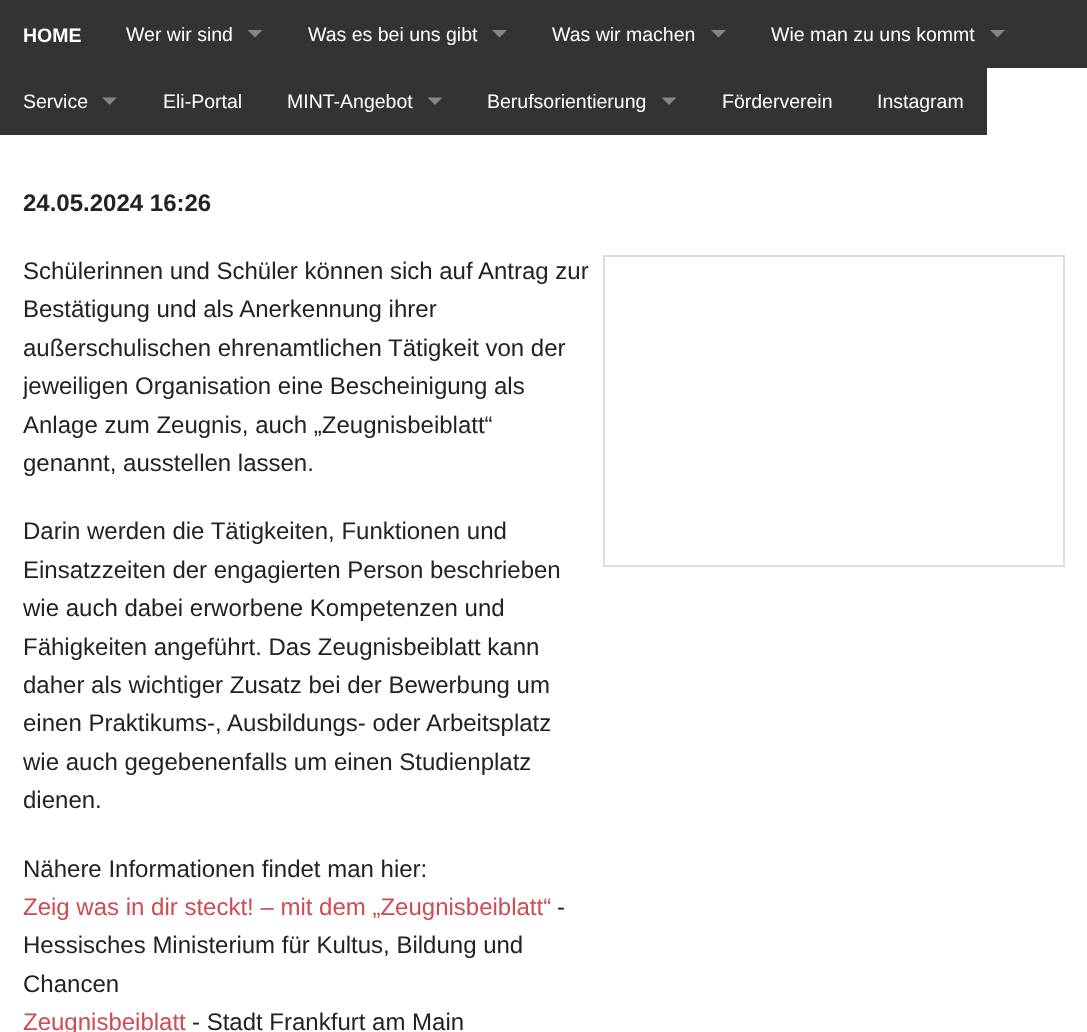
async function draw(canvas) {
  canvas.width = 1087
  canvas.height = 1032
  const ctx = canvas.getContext('2d')
  ctx.miterLimit = 4
  ctx.fontKerning = 'normal'

  ctx.fillStyle = '#fff'
  ctx.fillRect(0, 0, 1087, 1032)
  ctx.fillStyle = '#333'
  ctx.fillRect(0, 0, 1087, 68)
  ctx.font = '19.5px Liberation Sans'
  ctx.fillStyle = '#fff'
  ctx.fillText('Wer wir sind', 126, 41)
  ctx.fillStyle = '#858585'
  ctx.beginPath()
  ctx.moveTo(247.5, 30)
  ctx.lineTo(262.5, 30)
  ctx.lineTo(255, 37.5)
  ctx.closePath()
  ctx.fill()
  ctx.fillStyle = '#fff'
  ctx.fillText('Was es bei uns gibt', 308, 41)
  ctx.fillStyle = '#858585'
  ctx.beginPath()
  ctx.moveTo(492, 30)
  ctx.lineTo(507, 30)
  ctx.lineTo(499.5, 37.5)
  ctx.closePath()
  ctx.fill()
  ctx.fillStyle = '#fff'
  ctx.fillText('Was wir machen', 552, 41)
  ctx.fillStyle = '#858585'
  ctx.beginPath()
  ctx.moveTo(711, 30)
  ctx.lineTo(726, 30)
  ctx.lineTo(718.5, 37.5)
  ctx.closePath()
  ctx.fill()
  ctx.fillStyle = '#fff'
  ctx.fillText('Wie man zu uns kommt', 771, 41)
  ctx.fillStyle = '#858585'
  ctx.beginPath()
  ctx.moveTo(990, 30)
  ctx.lineTo(1005, 30)
  ctx.lineTo(997.5, 37.5)
  ctx.closePath()
  ctx.fill()
  ctx.fillStyle = '#333'
  ctx.fillRect(0, 68, 465, 67)
  ctx.fillStyle = '#fff'
  ctx.fillText('Service', 23, 108)
  ctx.fillStyle = '#858585'
  ctx.beginPath()
  ctx.moveTo(102, 97.5)
  ctx.lineTo(117, 97.5)
  ctx.lineTo(109.5, 105)
  ctx.closePath()
  ctx.fill()
  ctx.fillStyle = '#fff'
  ctx.fillText('Eli-Portal', 163, 108)
  ctx.fillText('MINT-Angebot', 287, 108)
  ctx.fillStyle = '#858585'
  ctx.beginPath()
  ctx.moveTo(427.5, 97.5)
  ctx.lineTo(442.5, 97.5)
  ctx.lineTo(435, 105)
  ctx.closePath()
  ctx.fill()
  ctx.fillStyle = '#333'
  ctx.fillRect(465, 68, 522, 67)
  ctx.fillStyle = '#fff'
  ctx.fillText('Berufsorientierung', 487, 108)
  ctx.fillStyle = '#858585'
  ctx.beginPath()
  ctx.moveTo(661.5, 97.5)
  ctx.lineTo(676.5, 97.5)
  ctx.lineTo(669, 105)
  ctx.closePath()
  ctx.fill()
  ctx.fillStyle = '#fff'
  ctx.fillText('Förderverein', 722, 108)
  ctx.fillText('Instagram', 877, 108)
  ctx.font = 'bold 19.5px Liberation Sans'
  ctx.fillText('HOME', 23, 42)
  ctx.font = 'bold 24px Liberation Sans'
  ctx.fillStyle = '#222'
  ctx.fillText('24.05.2024 16:26', 23, 211)
  ctx.font = '24px Liberation Sans'
  ctx.fillText('Schülerinnen und Schüler können sich auf Antrag zur', 23, 279)
  ctx.fillText('Bestätigung und als Anerkennung ihrer', 23, 317)
  ctx.fillText('außerschulischen ehrenamtlichen Tätigkeit von der', 23, 356)
  ctx.save()
  ctx.beginPath()
  ctx.rect(23, 21, 1042, 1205)
  ctx.clip()
  ctx.fillText('jeweiligen Organisation eine Bescheinigung als', 23, 394)
  ctx.restore()
  ctx.fillText('Anlage zum Zeugnis, auch „Zeugnisbeiblatt“', 23, 433)
  ctx.fillText('genannt, ausstellen lassen.', 23, 471)
  ctx.strokeStyle = '#dddcdc'
  ctx.lineWidth = 2
  ctx.strokeRect(604, 256, 460, 310)
  ctx.fillText('Darin werden die Tätigkeiten, Funktionen und', 23, 539)
  ctx.fillText('Einsatzzeiten der engagierten Person beschrieben', 23, 578)
  ctx.fillText('wie auch dabei erworbene Kompetenzen und', 23, 616)
  ctx.fillText('Fähigkeiten angeführt. Das Zeugnisbeiblatt kann', 23, 655)
  ctx.fillText('daher als wichtiger Zusatz bei der Bewerbung um', 23, 693)
  ctx.fillText('einen Praktikums-, Ausbildungs- oder Arbeitsplatz', 23, 731)
  ctx.fillText('wie auch gegebenenfalls um einen Studienplatz', 23, 770)
  ctx.fillText('dienen.', 23, 808)
  ctx.fillText('Nähere Informationen findet man hier:', 23, 877)
  ctx.fillStyle = '#ce4b51'
  ctx.fillText('Zeig was in dir steckt! – mit dem „Zeugnisbeiblatt“', 23, 915)
  ctx.fillStyle = '#222'
  ctx.fillText('-', 557, 915)
  ctx.fillText('Hessisches Ministerium für Kultus, Bildung und', 23, 953)
  ctx.fillText('Chancen', 23, 992)
  ctx.fillStyle = '#ce4b51'
  ctx.fillText('Zeugnisbeiblatt', 23, 1030)
  ctx.fillStyle = '#222'
  ctx.fillText('- Stadt Frankfurt am Main', 192, 1030)
}

draw(document.querySelector('canvas'))
